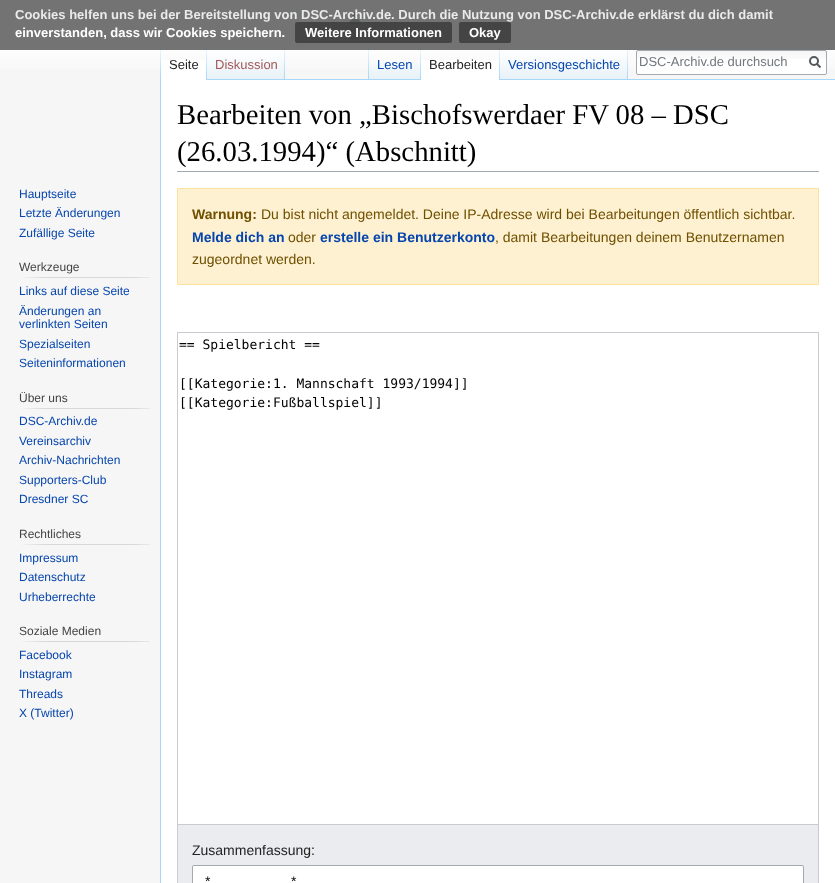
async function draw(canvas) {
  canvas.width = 835
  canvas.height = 883
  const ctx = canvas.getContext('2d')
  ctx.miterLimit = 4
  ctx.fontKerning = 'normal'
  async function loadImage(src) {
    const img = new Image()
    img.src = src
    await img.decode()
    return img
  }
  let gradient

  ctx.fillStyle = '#f6f6f6'
  ctx.fillRect(0, 0, 835, 883)
  gradient = ctx.createLinearGradient(418, 0, 418, 80)
  gradient.addColorStop(0.5, '#fff')
  gradient.addColorStop(1, '#f6f6f6')
  ctx.fillStyle = gradient
  ctx.fillRect(0, 0, 835, 69)
  ctx.drawImage(await loadImage('image0.png'), 349, 12, 12, 13)
  ctx.drawImage(await loadImage('image1.png'), 160, 40, 1, 39)
  ctx.drawImage(await loadImage('image2.png'), 206, 40, 1, 40)
  ctx.drawImage(await loadImage('image3.png'), 207, 40, 77, 39)
  ctx.drawImage(await loadImage('image1.png'), 284, 40, 1, 39)
  ctx.drawImage(await loadImage('image1.png'), 368, 40, 1, 39)
  ctx.drawImage(await loadImage('image1.png'), 420, 40, 1, 39)
  ctx.fillStyle = '#a7d7f9'
  ctx.fillRect(207, 79, 628, 1)
  ctx.drawImage(await loadImage('image2.png'), 499, 40, 1, 40)
  ctx.drawImage(await loadImage('image5.png'), 500, 40, 127, 39)
  ctx.drawImage(await loadImage('image1.png'), 627, 40, 1, 39)
  ctx.fillStyle = '#5a5a5ad9'
  ctx.fillRect(0, 0, 835, 50)
  ctx.font = 'bold 13px Liberation Sans'
  ctx.fillStyle = '#e9eaea'
  ctx.fillText('Cookies helfen uns bei der Bereitstellung von DSC-Archiv.de. Durch die Nutzung von DSC-Archiv.de erklärst du dich damit', 15, 19)
  ctx.fillStyle = '#fff'
  ctx.fillText('einverstanden, dass wir Cookies speichern.', 15, 37)
  ctx.fillStyle = '#3c3c3cd9'
  ctx.beginPath()
  ctx.roundRect(295, 22, 157, 21, 2)
  ctx.fill()
  ctx.fillStyle = '#fff'
  ctx.fillText('Weitere Informationen', 305, 37)
  ctx.fillStyle = '#3c3c3cd9'
  ctx.beginPath()
  ctx.roundRect(459, 22, 52, 21, 2)
  ctx.fill()
  ctx.fillStyle = '#fff'
  ctx.fillText('Okay', 469, 37)
  ctx.fillRect(161, 60, 45, 20)
  ctx.font = '13px Liberation Sans'
  ctx.fillStyle = '#222'
  ctx.fillText('Seite', 169, 69)
  ctx.fillStyle = '#a55858'
  ctx.fillText('Diskussion', 215, 69)
  ctx.drawImage(await loadImage('image4.png'), 369, 62, 51, 17)
  ctx.fillStyle = '#0645ad'
  ctx.fillText('Lesen', 377, 69)
  ctx.fillStyle = '#fff'
  ctx.fillRect(421, 60, 78, 20)
  ctx.fillStyle = '#222'
  ctx.fillText('Bearbeiten', 429, 69)
  ctx.fillStyle = '#0645ad'
  ctx.fillText('Versionsgeschichte', 508, 69)
  ctx.fillStyle = '#fff'
  ctx.beginPath()
  ctx.roundRect(636, 50, 191, 25, 2)
  ctx.fill()
  ctx.drawImage(await loadImage('image6.png'), 636, 51, 191, 8)
  ctx.beginPath()
  ctx.roundRect(636.5, 50.5, 190, 24, 1.5)
  ctx.strokeStyle = '#a2a9b1'
  ctx.stroke()
  ctx.fillStyle = '#72777d'
  ctx.fillText('DSC-Archiv.de durchsuch', 639, 66)
  ctx.beginPath()
  ctx.moveTo(820.5, 67.5)
  ctx.lineTo(816.5, 63.5)
  ctx.strokeStyle = '#54595d'
  ctx.lineWidth = 2
  ctx.stroke()
  ctx.beginPath()
  ctx.arc(814, 61, 4, 0, 2 * Math.PI)
  ctx.stroke()
  ctx.font = '12px Liberation Sans'
  ctx.fillStyle = '#0645ad'
  ctx.fillText('Hauptseite', 19, 198)
  ctx.fillText('Letzte Änderungen', 19, 217)
  ctx.fillText('Zufällige Seite', 19, 237)
  ctx.fillStyle = '#444'
  ctx.fillText('Werkzeuge', 19, 271)
  ctx.drawImage(await loadImage('image7.png'), 22, 277, 128, 1)
  ctx.fillStyle = '#0645ad'
  ctx.fillText('Links auf diese Seite', 19, 295)
  ctx.fillText('Änderungen an', 19, 315)
  ctx.fillText('verlinkten Seiten', 19, 328)
  ctx.fillText('Spezialseiten', 19, 348)
  ctx.fillText('Seiteninformationen', 19, 367)
  ctx.fillStyle = '#444'
  ctx.fillText('Über uns', 19, 402)
  ctx.drawImage(await loadImage('image7.png'), 22, 408, 128, 1)
  ctx.fillStyle = '#0645ad'
  ctx.fillText('DSC-Archiv.de', 19, 425)
  ctx.fillText('Vereinsarchiv', 19, 445)
  ctx.fillText('Archiv-Nachrichten', 19, 464)
  ctx.fillText('Supporters-Club', 19, 484)
  ctx.fillText('Dresdner SC', 19, 503)
  ctx.fillStyle = '#444'
  ctx.fillText('Rechtliches', 19, 538)
  ctx.drawImage(await loadImage('image7.png'), 22, 544, 128, 1)
  ctx.fillStyle = '#0645ad'
  ctx.fillText('Impressum', 19, 562)
  ctx.fillText('Datenschutz', 19, 581)
  ctx.fillText('Urheberrechte', 19, 601)
  ctx.fillStyle = '#444'
  ctx.fillText('Soziale Medien', 19, 635)
  ctx.drawImage(await loadImage('image7.png'), 22, 641, 128, 1)
  ctx.fillStyle = '#0645ad'
  ctx.fillText('Facebook', 19, 659)
  ctx.fillText('Instagram', 19, 678)
  ctx.fillText('Threads', 19, 698)
  ctx.fillText('X (Twitter)', 19, 717)
  ctx.fillStyle = '#fff'
  ctx.fillRect(161, 80, 674, 803)
  ctx.fillStyle = '#a7d7f9'
  ctx.fillRect(160, 79, 1, 804)
  ctx.fillStyle = '#a2a9b1'
  ctx.fillRect(177, 171, 642, 1)
  ctx.font = '28.75px Liberation Serif'
  ctx.fillStyle = '#000'
  ctx.fillText('Bearbeiten von „Bischofswerdaer FV 08 – DSC', 177, 124)
  ctx.fillText('(26.03.1994)“ (Abschnitt)', 177, 161)
  ctx.fillStyle = '#fdf1d1'
  ctx.beginPath()
  ctx.rect(177.5, 188.5, 641, 96)
  ctx.fill()
  ctx.strokeStyle = '#fde29b'
  ctx.lineWidth = 1
  ctx.stroke()
  ctx.font = 'bold 14px Liberation Sans'
  ctx.fillStyle = '#705000'
  ctx.fillText('Warnung:', 192, 219)
  ctx.font = '14px Liberation Sans'
  ctx.fillText('Du bist nicht angemeldet. Deine IP-Adresse wird bei Bearbeitungen öffentlich sichtbar.', 261, 219)
  ctx.font = 'bold 14px Liberation Sans'
  ctx.fillStyle = '#0645ad'
  ctx.fillText('Melde dich an', 192, 242)
  ctx.font = '14px Liberation Sans'
  ctx.fillStyle = '#705000'
  ctx.fillText('oder', 288, 242)
  ctx.font = 'bold 14px Liberation Sans'
  ctx.fillStyle = '#0645ad'
  ctx.fillText('erstelle ein Benutzerkonto', 320, 242)
  ctx.font = '14px Liberation Sans'
  ctx.fillStyle = '#705000'
  ctx.fillText(', damit Bearbeitungen deinem Benutzernamen', 495, 242)
  ctx.fillText('zugeordnet werden.', 192, 264)
  ctx.strokeStyle = '#c8ccd1'
  ctx.strokeRect(177.5, 332.5, 641, 492)
  ctx.font = '13px DejaVu Sans Mono'
  ctx.fillStyle = '#000'
  ctx.fillText('== Spielbericht ==', 179, 349)
  ctx.fillText('[[Kategorie:1. Mannschaft 1993/1994]]', 179, 388)
  ctx.fillText('[[Kategorie:Fußballspiel]]', 179, 407)
  ctx.fillStyle = '#eaecf0'
  ctx.fillRect(178, 825, 640, 58)
  ctx.fillStyle = '#c8ccd1'
  ctx.fillRect(818, 825, 1, 58)
  ctx.fillRect(177, 825, 1, 58)
  ctx.font = '14px Liberation Sans'
  ctx.fillStyle = '#222'
  ctx.fillText('Zusammenfassung:', 192, 855)
  ctx.fillStyle = '#fff'
  ctx.beginPath()
  ctx.roundRect(192.5, 865.5, 611, 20, 1.5)
  ctx.fill()
  ctx.strokeStyle = '#a2a9b1'
  ctx.stroke()
  ctx.fillStyle = '#000'
  ctx.fillText('*', 205, 886)
  ctx.fillText('*', 291, 886)
}

draw(document.querySelector('canvas'))
